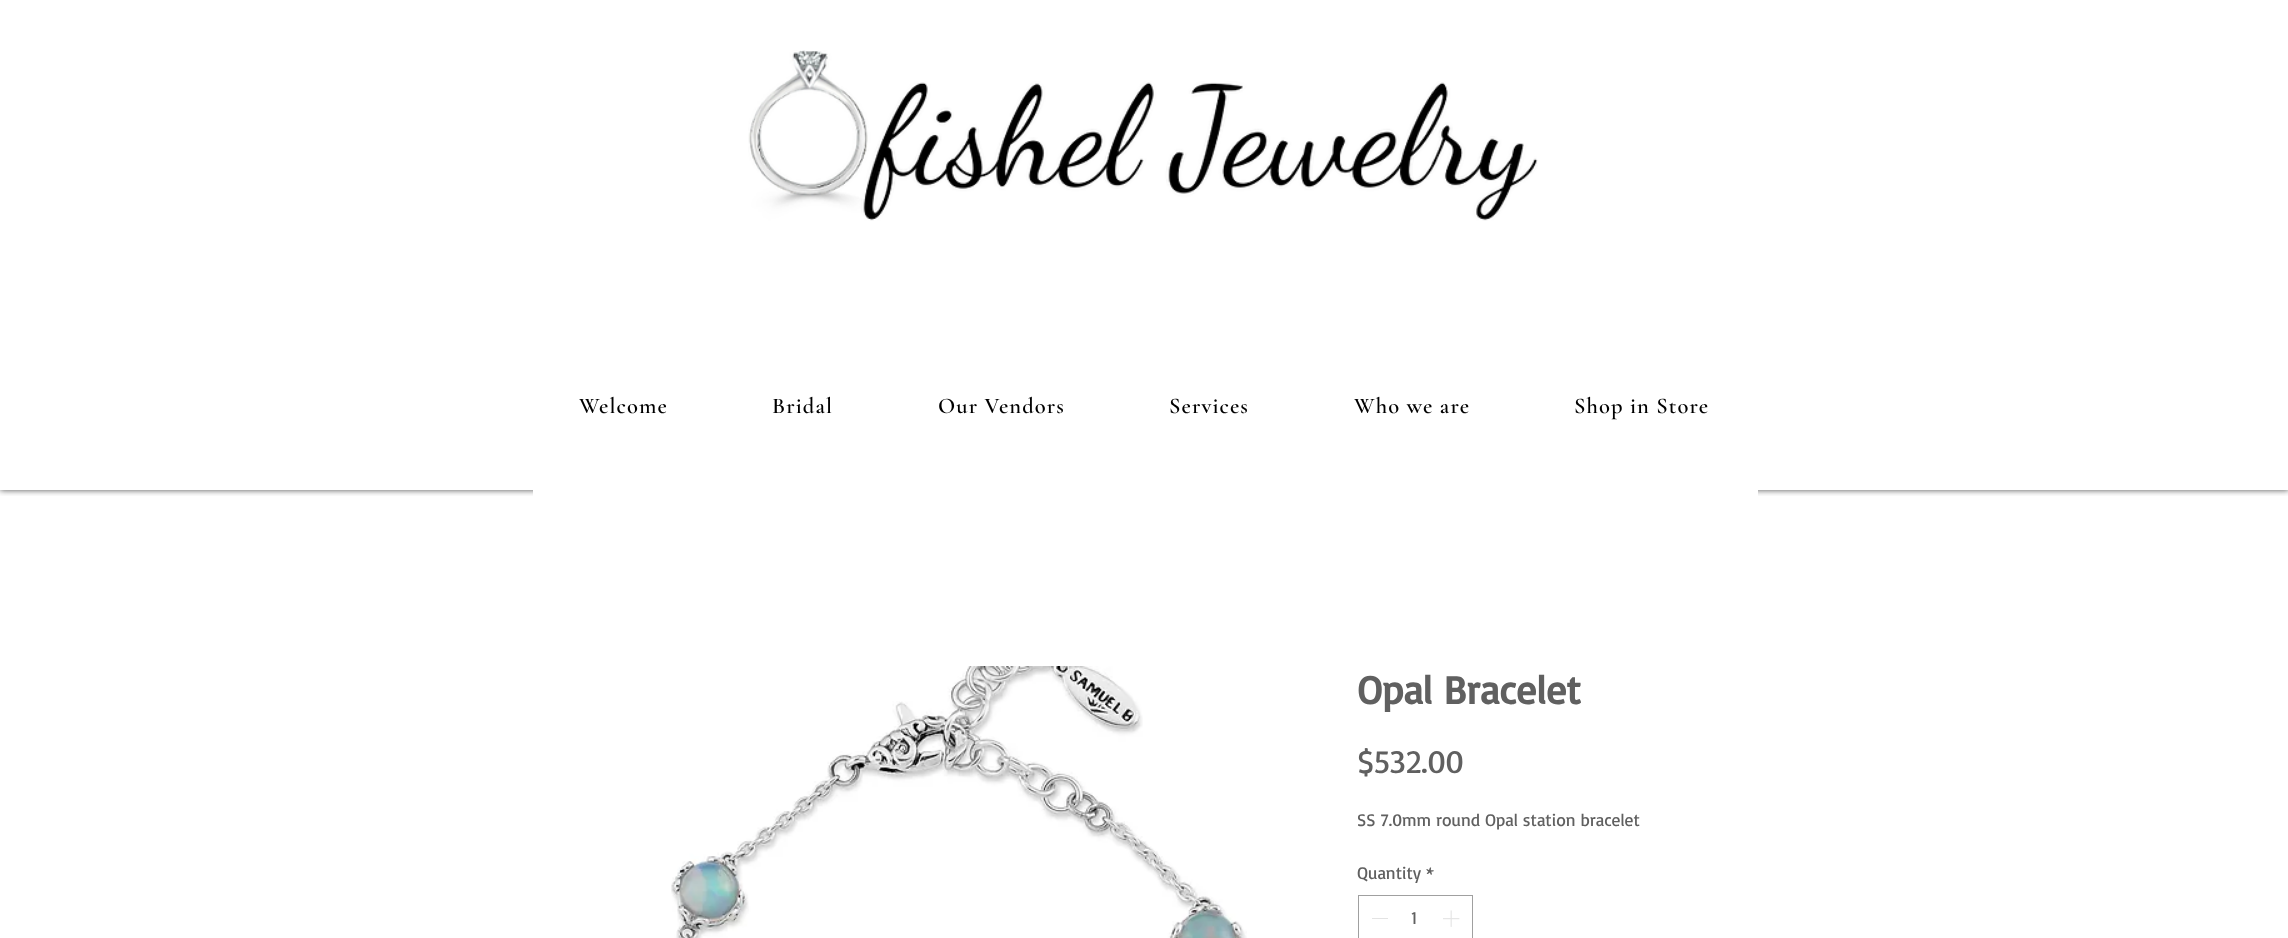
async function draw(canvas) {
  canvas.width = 2288
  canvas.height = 938
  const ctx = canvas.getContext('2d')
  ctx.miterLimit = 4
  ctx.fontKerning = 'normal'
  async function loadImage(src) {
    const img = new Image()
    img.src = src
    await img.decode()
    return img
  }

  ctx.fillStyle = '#fff'
  ctx.fillRect(0, 0, 2288, 938)
  ctx.save()
  ctx.beginPath()
  ctx.rect(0, 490, 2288, 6)
  ctx.clip()
  ctx.fillStyle = '#000000b3'
  ctx.filter = 'blur(3px)'
  ctx.beginPath()
  ctx.rect(0, 0, 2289, 490)
  ctx.fill()
  ctx.filter = 'none'
  ctx.restore()
  ctx.drawImage(await loadImage('image0.png'), 748, 50, 790, 171)
  ctx.letterSpacing = '1.1px'
  ctx.font = '600 22.5px Cormorant Garamond'
  ctx.fillStyle = '#000'
  ctx.fillText('Welcome', 579, 413)
  ctx.fillText('Bridal', 772, 413)
  ctx.fillText('Our Vendors', 938, 413)
  ctx.fillText('Services', 1169, 413)
  ctx.fillText('Who we are', 1354, 413)
  ctx.fillText('Shop in Store', 1574, 413)
  ctx.fillStyle = '#fff'
  ctx.fillRect(533, 490, 1225, 7)
  ctx.drawImage(await loadImage('image1.png'), 671, 666, 576, 272)
  ctx.letterSpacing = '0px'
  ctx.font = 'bold 40px Basic'
  ctx.fillStyle = '#606060'
  ctx.fillText('Opal Bracelet', 1357, 704)
  ctx.font = '32.5px Basic'
  ctx.fillText('$532.00', 1357, 773)
  ctx.font = '17.5px Basic'
  ctx.fillText('SS 7.0mm round Opal station bracelet', 1357, 826)
  ctx.fillText('Quantity *', 1357, 879)
  ctx.strokeStyle = '#a0a0a0'
  ctx.strokeRect(1358.5, 895.5, 114, 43)
  ctx.fillStyle = '#e3e3e3'
  ctx.fillRect(1372, 918, 16, 1)
  ctx.fillStyle = '#606060'
  ctx.fillText('1', 1411, 924)
  ctx.drawImage(await loadImage('image2.png'), 1443, 910, 17, 17)
}

draw(document.querySelector('canvas'))
